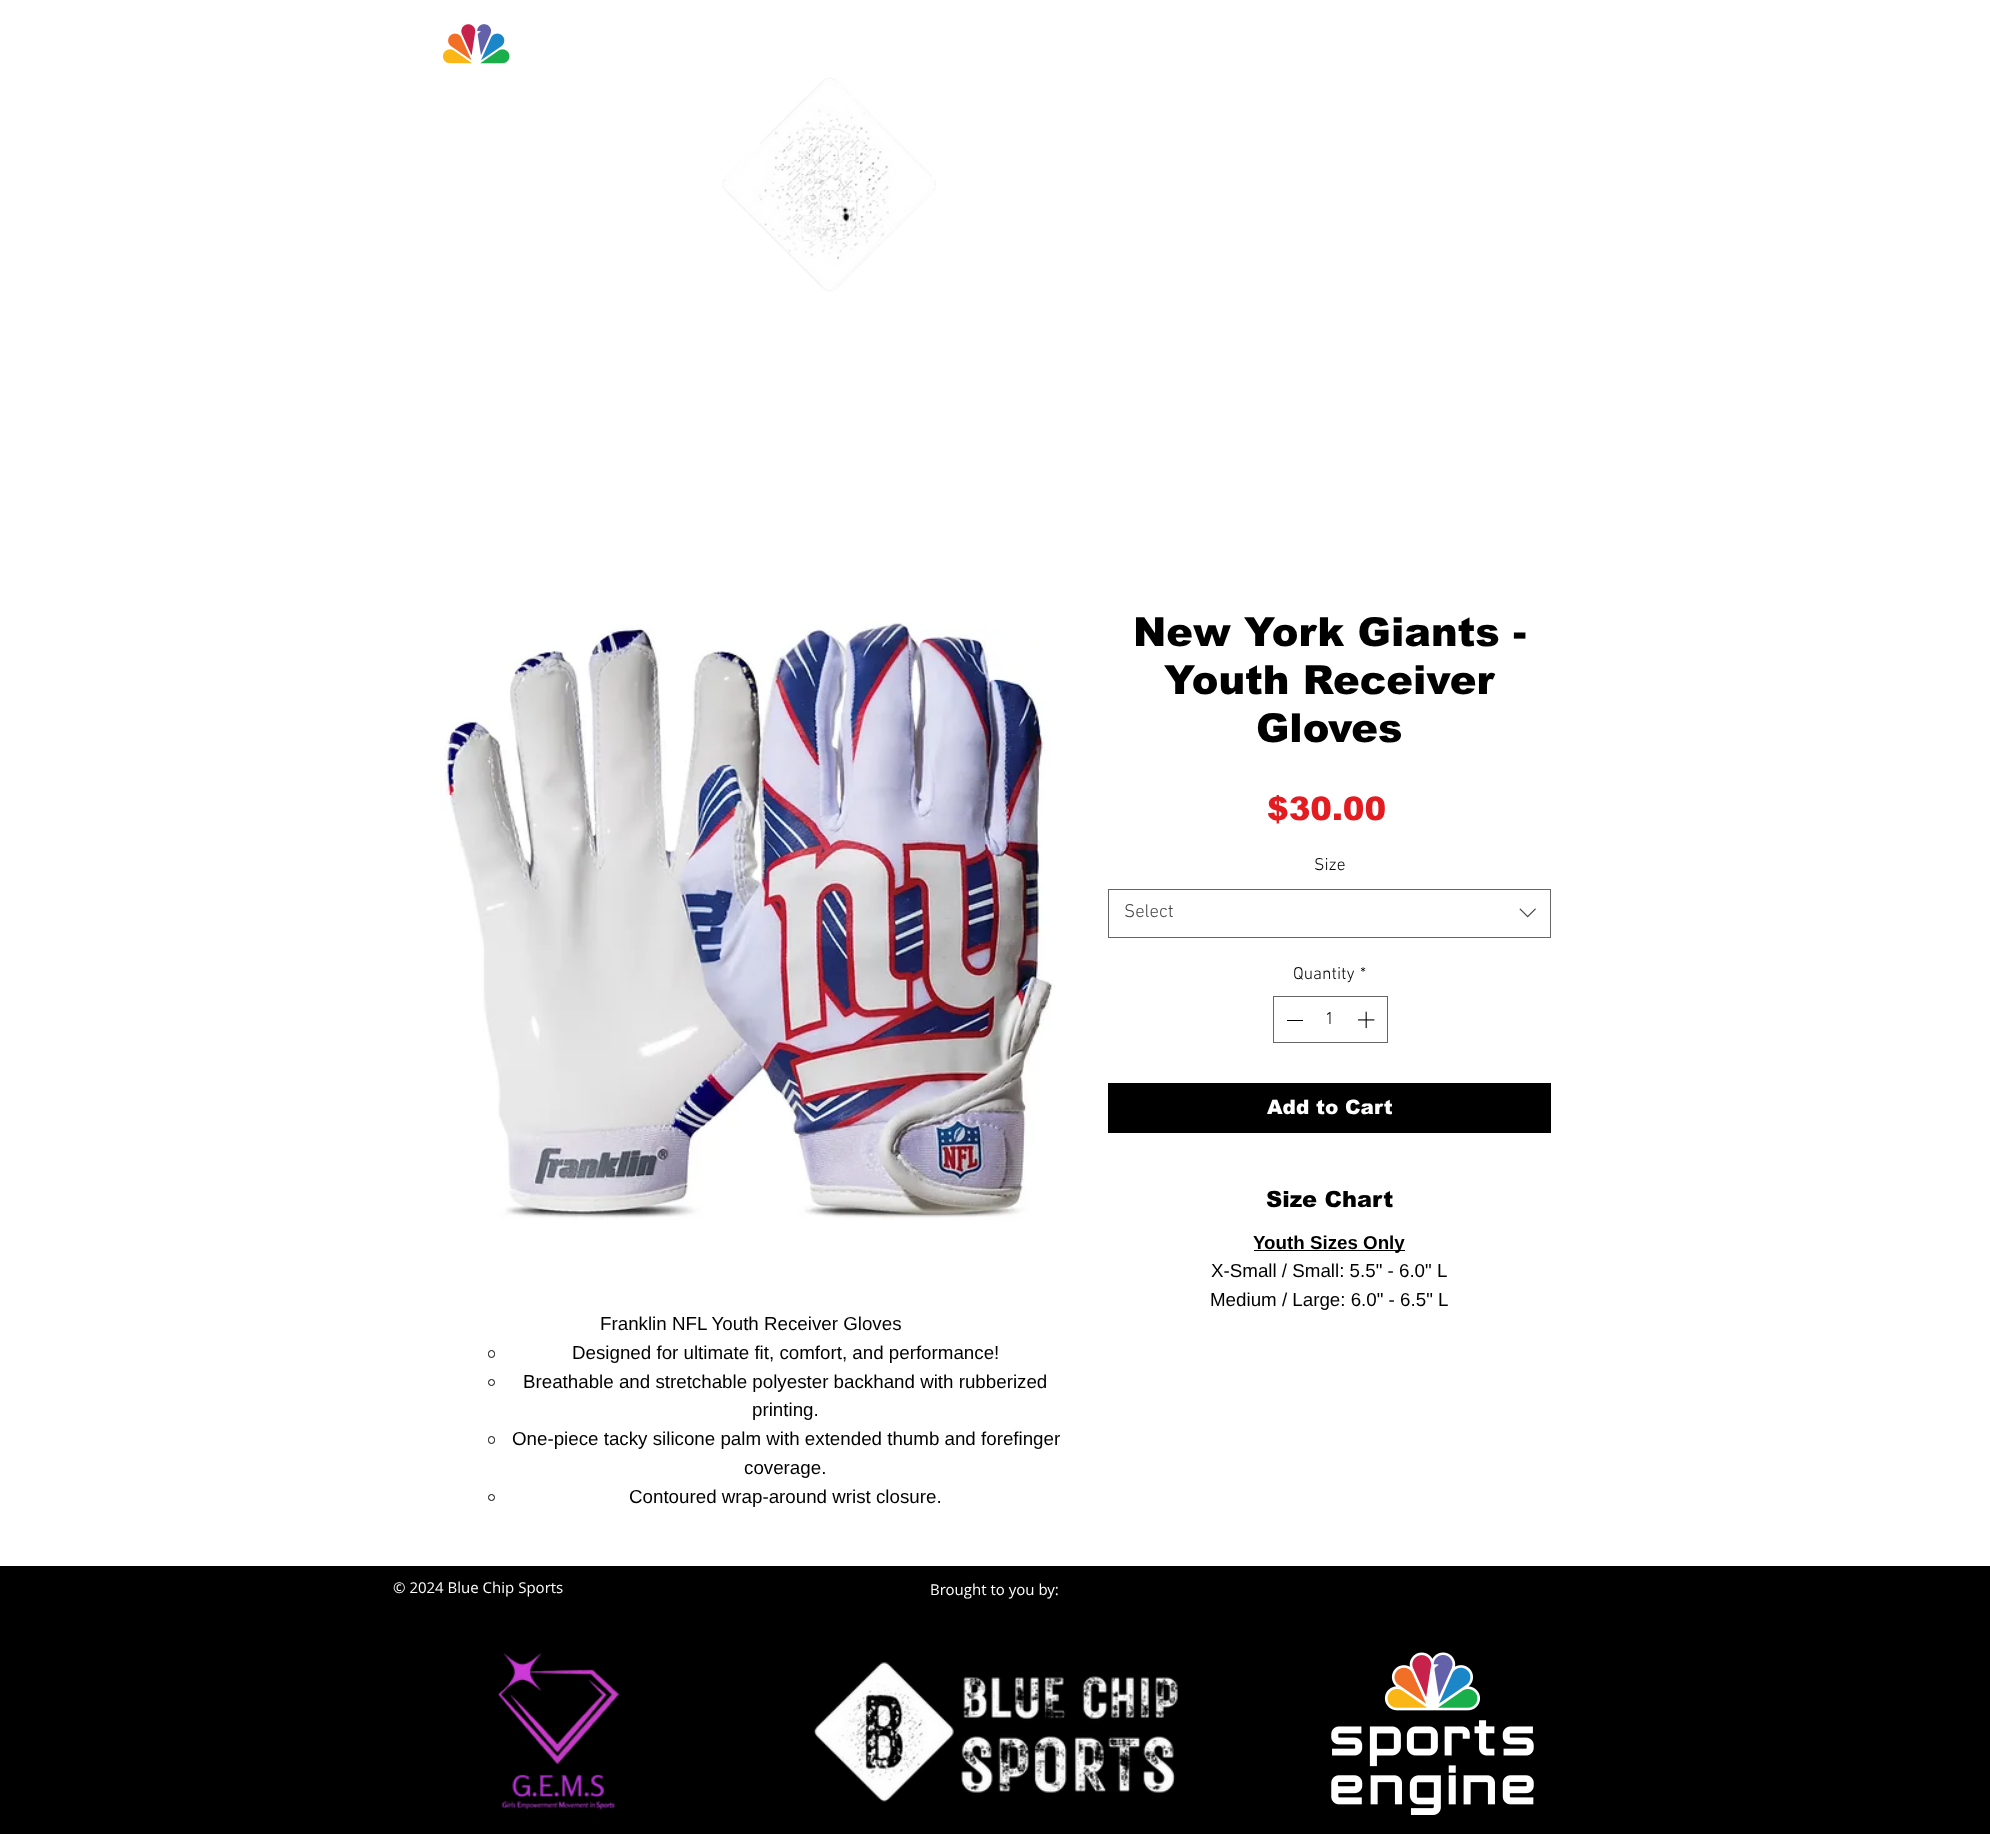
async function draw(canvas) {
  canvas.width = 1990
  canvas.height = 1834
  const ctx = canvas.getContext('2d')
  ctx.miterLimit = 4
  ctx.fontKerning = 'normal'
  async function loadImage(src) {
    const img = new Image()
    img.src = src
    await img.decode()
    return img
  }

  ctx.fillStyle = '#fff'
  ctx.fillRect(0, 0, 1990, 1834)
  ctx.drawImage(await loadImage('image0.png'), 443, 24, 67, 40)
  ctx.drawImage(await loadImage('image1.png'), 722, 77, 214, 215)
  ctx.font = '900 40px arial'
  ctx.fillStyle = '#000'
  ctx.fillText('New York Giants -', 1133, 646)
  ctx.fillText('Youth Receiver', 1164, 694)
  ctx.fillText('Gloves', 1256, 742)
  ctx.font = '900 32.5px arial'
  ctx.fillStyle = '#e21c21'
  ctx.fillText('$30.00', 1267, 820)
  ctx.font = '300 17.5px "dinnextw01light"'
  ctx.fillStyle = '#000'
  ctx.fillText('Size', 1314, 870)
  ctx.strokeStyle = '#666'
  ctx.strokeRect(1108.5, 889.5, 442, 48)
  ctx.font = '300 18.75px "dinnextw01light"'
  ctx.fillStyle = '#444'
  ctx.fillText('Select', 1124, 917)
  ctx.drawImage(await loadImage('image2.png'), 1519, 908, 17, 10)
  ctx.font = '300 17.5px "dinnextw01light"'
  ctx.fillStyle = '#000'
  ctx.fillText('Quantity', 1293, 979)
  ctx.fillText('*', 1360, 979)
  ctx.strokeRect(1273.5, 996.5, 114, 46)
  ctx.fillRect(1287, 1020, 16, 1)
  ctx.fillText('1', 1325, 1024)
  ctx.drawImage(await loadImage('image3.png'), 1358, 1011, 17, 18)
  ctx.fillRect(1108, 1083, 443, 50)
  ctx.font = '900 20px arial'
  ctx.fillStyle = '#fff'
  ctx.fillText('Add to Cart', 1267, 1114)
  ctx.font = '900 22.5px arial'
  ctx.fillStyle = '#000'
  ctx.fillText('Size Chart', 1266, 1207)
  ctx.fillRect(1254, 1250, 151, 1)
  ctx.font = 'bold 18.75px Liberation Sans'
  ctx.fillText('Youth Sizes Only', 1253, 1249)
  ctx.font = '18.75px Liberation Sans'
  ctx.fillText('X-Small / Small: 5.5" - 6.0" L', 1211, 1277)
  ctx.fillText('Medium / Large: 6.0" - 6.5" L', 1210, 1306)
  ctx.drawImage(await loadImage('image4.png'), 440, 622, 615, 598)
  ctx.fillText('Franklin NFL Youth Receiver Gloves', 600, 1330)
  ctx.beginPath()
  ctx.roundRect(488.5, 1350.5, 6, 7, 3)
  ctx.strokeStyle = '#000'
  ctx.stroke()
  ctx.fillText('Designed for ultimate fit, comfort, and performance!', 572, 1359)
  ctx.beginPath()
  ctx.arc(491.5, 1382.5, 3, 0, 2 * Math.PI)
  ctx.stroke()
  ctx.fillText('Breathable and stretchable polyester backhand with rubberized', 523, 1388)
  ctx.fillText('printing.', 752, 1416)
  ctx.beginPath()
  ctx.roundRect(488.5, 1436.5, 6, 7, 3)
  ctx.stroke()
  ctx.fillText('One-piece tacky silicone palm with extended thumb and forefinger', 512, 1445)
  ctx.fillText('coverage.', 744, 1474)
  ctx.beginPath()
  ctx.arc(491.5, 1497.5, 3, 0, 2 * Math.PI)
  ctx.stroke()
  ctx.fillText('Contoured wrap-around wrist closure.', 629, 1503)
  ctx.fillRect(0, 1566, 1990, 268)
  ctx.font = '15px Open Sans'
  ctx.fillStyle = '#fff'
  ctx.fillText('© 2024 Blue Chip Sports', 393, 1593)
  ctx.fillText('Brought to you by:', 930, 1595)
  ctx.drawImage(await loadImage('image5.png'), 498, 1653, 121, 157)
  ctx.drawImage(await loadImage('image6.png'), 813, 1662, 365, 140)
  ctx.drawImage(await loadImage('image7.png'), 1331, 1652, 203, 163)
}

draw(document.querySelector('canvas'))
